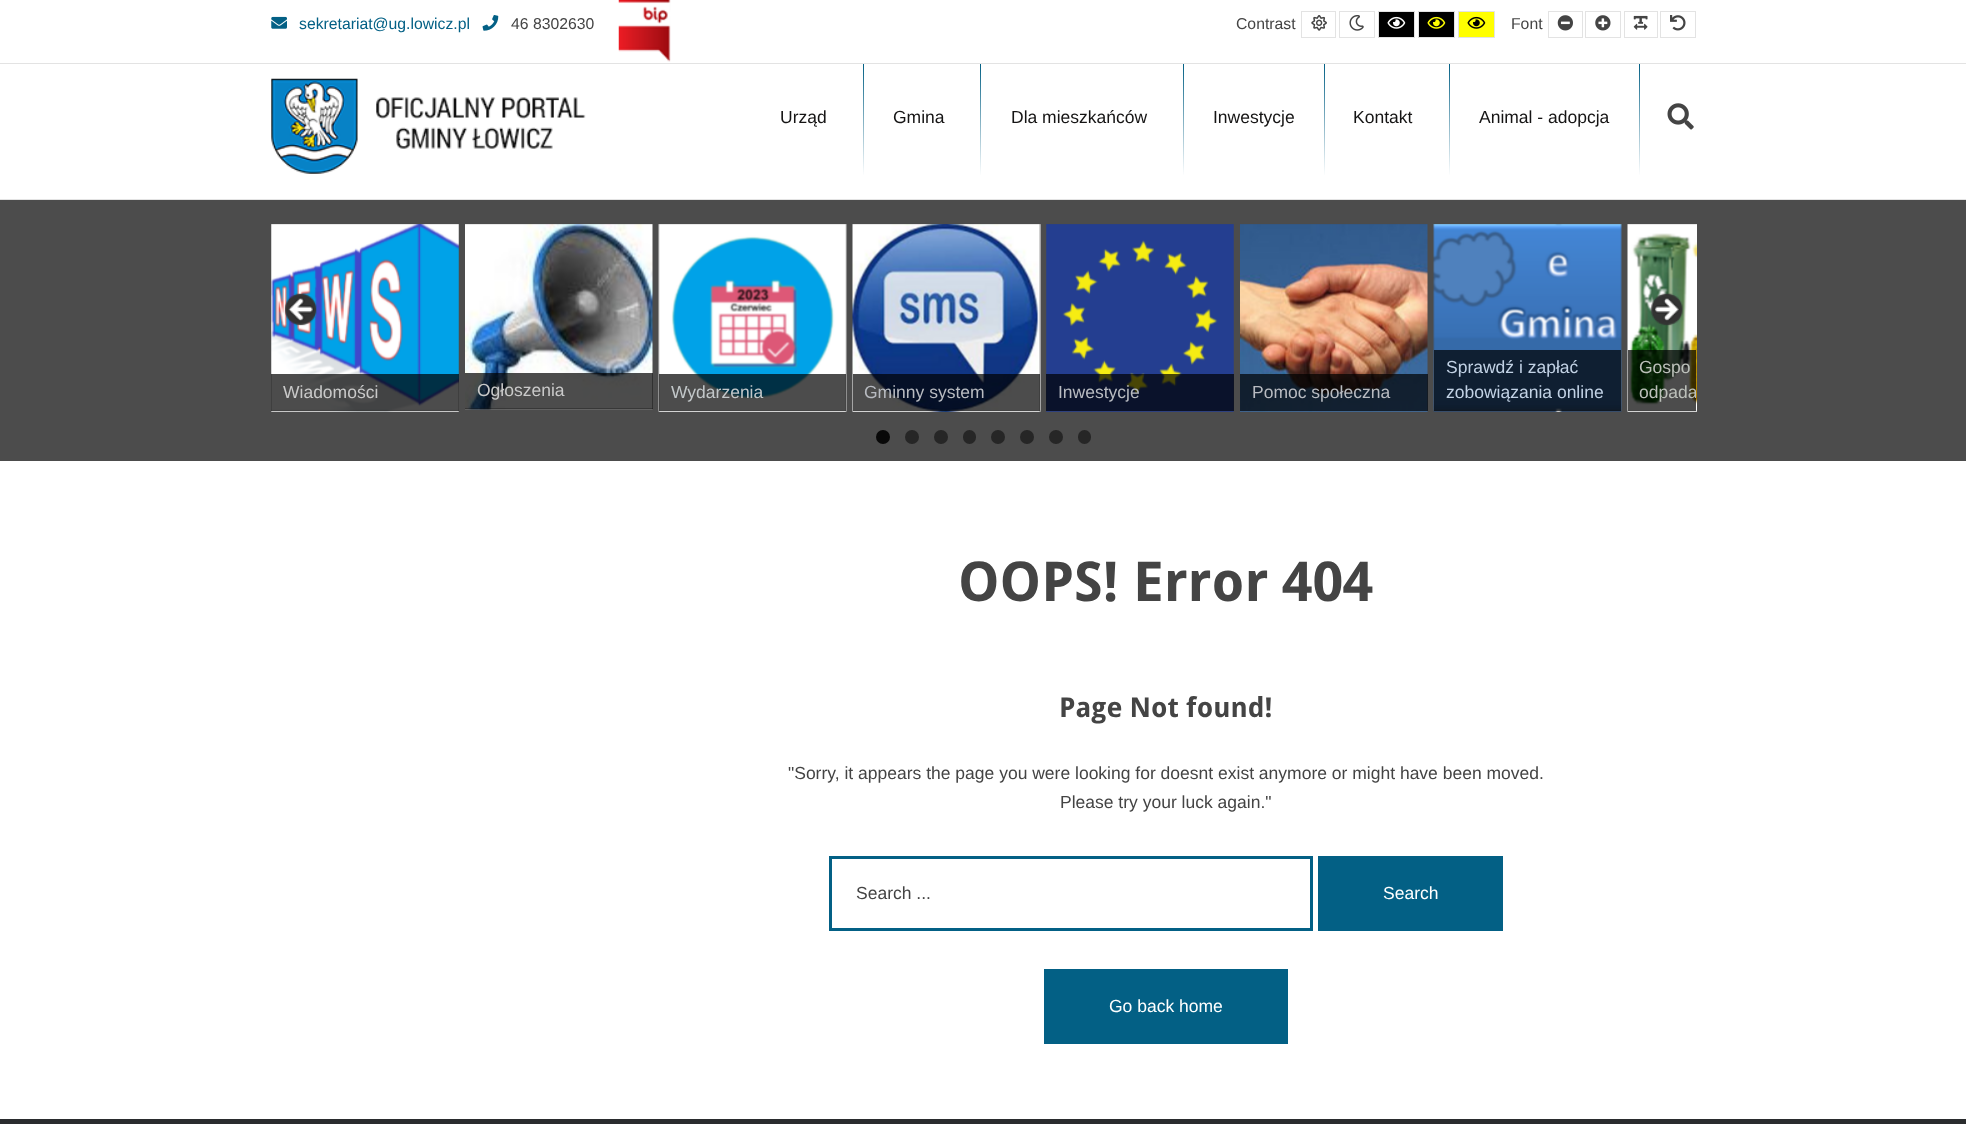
async function draw(canvas) {
  canvas.width = 1966
  canvas.height = 1124
  const ctx = canvas.getContext('2d')
  ctx.miterLimit = 4
  ctx.fontKerning = 'normal'
  async function loadImage(src) {
    const img = new Image()
    img.src = src
    await img.decode()
    return img
  }
  let gradient

  ctx.fillStyle = '#fff'
  ctx.fillRect(0, 0, 1966, 1124)
  ctx.fillStyle = '#e3e3e3'
  ctx.fillRect(0, 199, 1966, 1)
  ctx.fillRect(0, 63, 1966, 1)
  ctx.drawImage(await loadImage('image0.png'), 271, 16, 16, 13)
  ctx.font = '15.75px Liberation Sans'
  ctx.fillStyle = '#036085'
  ctx.fillText('sekretariat@ug.lowicz.pl', 299, 29)
  ctx.drawImage(await loadImage('image1.png'), 482, 15, 17, 16)
  ctx.fillStyle = '#444'
  ctx.fillText('46 8302630', 511, 29)
  ctx.drawImage(await loadImage('image2.png'), 618, 0, 53, 62)
  ctx.fillText('Contrast', 1236, 29)
  ctx.strokeStyle = '#e3e3e3'
  ctx.strokeRect(1301.5, 11.5, 34, 26)
  ctx.drawImage(await loadImage('image3.png'), 1311, 15, 16, 16)
  ctx.strokeRect(1339.5, 11.5, 35, 26)
  ctx.drawImage(await loadImage('image4.png'), 1349, 15, 15, 16)
  ctx.fillStyle = '#000'
  ctx.beginPath()
  ctx.rect(1378.5, 11.5, 36, 26)
  ctx.fill()
  ctx.stroke()
  ctx.drawImage(await loadImage('image5.png'), 1387, 16, 19, 13)
  ctx.beginPath()
  ctx.rect(1418.5, 11.5, 36, 26)
  ctx.fill()
  ctx.stroke()
  ctx.drawImage(await loadImage('image6.png'), 1427, 16, 19, 13)
  ctx.fillStyle = '#ff0'
  ctx.beginPath()
  ctx.rect(1458.5, 11.5, 36, 26)
  ctx.fill()
  ctx.stroke()
  ctx.drawImage(await loadImage('image7.png'), 1467, 16, 19, 13)
  ctx.fillStyle = '#444'
  ctx.fillText('Font', 1511, 29)
  ctx.strokeRect(1548.5, 11.5, 34, 26)
  ctx.drawImage(await loadImage('image8.png'), 1557, 15, 16, 16)
  ctx.strokeRect(1585.5, 11.5, 35, 26)
  ctx.drawImage(await loadImage('image9.png'), 1595, 15, 16, 16)
  ctx.strokeRect(1624.5, 11.5, 33, 26)
  ctx.drawImage(await loadImage('image10.png'), 1633, 15, 15, 15)
  ctx.strokeRect(1660.5, 11.5, 35, 26)
  ctx.drawImage(await loadImage('image11.png'), 1670, 15, 16, 16)
  ctx.drawImage(await loadImage('image12.png'), 271, 78, 315, 96)
  gradient = ctx.createLinearGradient(1196, 64, 1196, 176)
  gradient.addColorStop(0, '#036085')
  gradient.addColorStop(1, '#fff')
  ctx.fillStyle = gradient
  ctx.fillRect(863, 64, 777, 111)
  ctx.font = '17.5px Liberation Sans'
  ctx.fillStyle = '#151414'
  ctx.fillText('Urząd', 780, 123)
  ctx.fillStyle = '#fff'
  ctx.fillRect(864, 64, 116, 111)
  ctx.fillStyle = '#151414'
  ctx.fillText('Gmina', 893, 123)
  ctx.fillStyle = '#fff'
  ctx.fillRect(981, 64, 202, 111)
  ctx.fillStyle = '#151414'
  ctx.fillText('Dla mieszkańców', 1011, 123)
  ctx.fillStyle = '#fff'
  ctx.fillRect(1184, 64, 140, 111)
  ctx.fillStyle = '#151414'
  ctx.fillText('Inwestycje', 1213, 123)
  ctx.fillStyle = '#fff'
  ctx.fillRect(1325, 64, 124, 111)
  ctx.fillStyle = '#151414'
  ctx.fillText('Kontakt', 1353, 123)
  ctx.fillStyle = '#fff'
  ctx.fillRect(1450, 64, 189, 111)
  ctx.fillStyle = '#151414'
  ctx.fillText('Animal - adopcja', 1479, 123)
  ctx.drawImage(await loadImage('image13.png'), 1667, 103, 27, 27)
  ctx.fillStyle = '#4c4c4c'
  ctx.fillRect(0, 200, 1966, 261)
  ctx.drawImage(await loadImage('image16.png'), 271, 224, 188, 188)
  ctx.drawImage(await loadImage('image14.png'), 284, 293, 33, 33)
  ctx.drawImage(await loadImage('image23.png'), 1627, 224, 70, 188)
  ctx.drawImage(await loadImage('image15.png'), 1651, 293, 32, 33)
  ctx.fillStyle = '#000000b3'
  ctx.fillRect(271, 374, 188, 37)
  ctx.fillStyle = '#c9c9c9'
  ctx.fillText('Wiadomości', 283, 398)
  ctx.drawImage(await loadImage('image17.png'), 465, 224, 188, 186)
  ctx.fillStyle = '#000000b3'
  ctx.fillRect(465, 373, 188, 36)
  ctx.fillStyle = '#c9c9c9'
  ctx.fillText('Ogłoszenia', 477, 396)
  ctx.drawImage(await loadImage('image18.png'), 658, 224, 189, 188)
  ctx.fillStyle = '#000000b3'
  ctx.fillRect(659, 374, 187, 37)
  ctx.fillStyle = '#c2c7c9'
  ctx.fillText('Wydarzenia', 671, 398)
  ctx.drawImage(await loadImage('image19.png'), 852, 224, 189, 188)
  ctx.fillStyle = '#000000b3'
  ctx.fillRect(853, 374, 187, 37)
  ctx.fillStyle = '#b8bbc1'
  ctx.fillText('Gminny system', 864, 398)
  ctx.drawImage(await loadImage('image20.png'), 1046, 224, 188, 188)
  ctx.fillStyle = '#000000b3'
  ctx.fillRect(1046, 374, 188, 37)
  ctx.fillStyle = '#b8bbc1'
  ctx.fillText('Inwestycje', 1058, 398)
  ctx.drawImage(await loadImage('image21.png'), 1240, 224, 188, 188)
  ctx.fillStyle = '#000000b3'
  ctx.fillRect(1240, 374, 188, 37)
  ctx.fillStyle = '#b8bbc1'
  ctx.fillText('Pomoc społeczna', 1252, 398)
  ctx.drawImage(await loadImage('image22.png'), 1433, 224, 189, 188)
  ctx.fillStyle = '#000000b3'
  ctx.fillRect(1434, 350, 187, 61)
  ctx.fillStyle = '#c2d2e5'
  ctx.fillText('Sprawdź i zapłać', 1446, 373)
  ctx.fillText('zobowiązania online', 1446, 398)
  ctx.fillStyle = '#000000b3'
  ctx.fillRect(1628, 350, 68, 61)
  ctx.fillStyle = '#bcc0ba'
  ctx.fillText('Gospo', 1639, 373)
  ctx.save()
  ctx.beginPath()
  ctx.rect(271, 224, 1425, 187)
  ctx.clip()
  ctx.fillText('odpada', 1639, 398)
  ctx.restore()
  ctx.fillStyle = '#080808'
  ctx.beginPath()
  ctx.arc(883, 437, 7, 0, 2 * Math.PI)
  ctx.fill()
  ctx.fillStyle = '#262626'
  ctx.beginPath()
  ctx.arc(912, 437, 7, 0, 2 * Math.PI)
  ctx.fill()
  ctx.beginPath()
  ctx.arc(941, 437, 7, 0, 2 * Math.PI)
  ctx.fill()
  ctx.beginPath()
  ctx.roundRect(963, 430, 13, 14, 6.5)
  ctx.fill()
  ctx.beginPath()
  ctx.arc(998, 437, 7, 0, 2 * Math.PI)
  ctx.fill()
  ctx.beginPath()
  ctx.arc(1027, 437, 7, 0, 2 * Math.PI)
  ctx.fill()
  ctx.beginPath()
  ctx.arc(1056, 437, 7, 0, 2 * Math.PI)
  ctx.fill()
  ctx.beginPath()
  ctx.roundRect(1078, 430, 13, 14, 6.5)
  ctx.fill()
  ctx.font = 'bold 55px Droid Sans'
  ctx.fillStyle = '#444'
  ctx.fillText('OOPS! Error 404', 958, 601)
  ctx.font = 'bold 27.5px Droid Sans'
  ctx.fillText('Page Not found!', 1059, 717)
  ctx.font = '17.5px Liberation Sans'
  ctx.fillText('"Sorry, it appears the page you were looking for doesnt exist anymore or might have been moved.', 788, 779)
  ctx.fillText('Please try your luck again."', 1060, 808)
  ctx.strokeStyle = '#036085'
  ctx.lineWidth = 3
  ctx.strokeRect(830.5, 857.5, 481, 72)
  ctx.fillText('Search ...', 856, 899)
  ctx.fillStyle = '#036085'
  ctx.fillRect(1318, 856, 185, 75)
  ctx.fillStyle = '#fff'
  ctx.fillText('Search', 1383, 899)
  ctx.fillStyle = '#036085'
  ctx.fillRect(1044, 969, 244, 75)
  ctx.fillStyle = '#fff'
  ctx.fillText('Go back home', 1109, 1012)
  ctx.fillStyle = '#2a2c2e'
  ctx.fillRect(0, 1119, 1966, 5)
}

draw(document.querySelector('canvas'))
